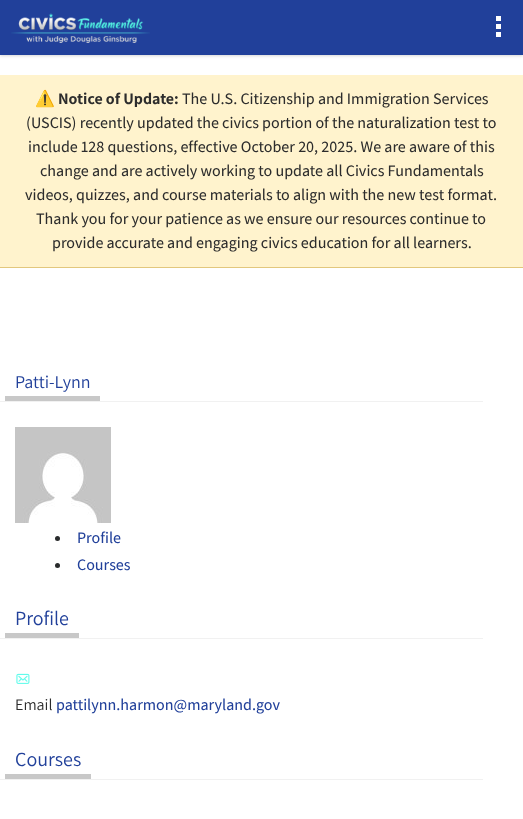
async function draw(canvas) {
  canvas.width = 523
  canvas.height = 819
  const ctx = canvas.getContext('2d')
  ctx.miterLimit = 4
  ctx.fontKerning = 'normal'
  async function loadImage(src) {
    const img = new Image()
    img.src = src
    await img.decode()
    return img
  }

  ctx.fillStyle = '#fff'
  ctx.fillRect(0, 0, 523, 819)
  ctx.fillStyle = '#00000029'
  ctx.filter = 'blur(1.5px)'
  ctx.beginPath()
  ctx.rect(0, 1, 523, 55)
  ctx.fill()
  ctx.filter = 'none'
  ctx.fillStyle = '#21409a'
  ctx.fillRect(0, 0, 523, 55)
  ctx.drawImage(await loadImage('image0.png'), 11, 13, 139, 30)
  ctx.fillStyle = '#fff'
  ctx.fillRect(496, 16, 5, 5)
  ctx.fillRect(496, 24, 5, 5)
  ctx.fillRect(496, 32, 5, 5)
  ctx.fillStyle = '#fff3cd'
  ctx.fillRect(0, 75, 523, 192)
  ctx.fillStyle = '#e2c77d'
  ctx.fillRect(0, 267, 523, 1)
  ctx.font = '16px Noto Color Emoji'
  ctx.fillStyle = '#2c2c2c'
  ctx.fillText('⚠️', 35, 104)
  ctx.font = 'bold 16px Assistant'
  ctx.fillText('Notice of Update:', 58, 104)
  ctx.font = '500 16px Assistant'
  ctx.fillText('The U.S. Citizenship and Immigration Services', 182, 104)
  ctx.fillText('(USCIS) recently updated the civics portion of the naturalization test to', 26, 128)
  ctx.fillText('include 128 questions, effective October 20, 2025. We are aware of this', 28, 152)
  ctx.fillText('change and are actively working to update all Civics Fundamentals', 40, 176)
  ctx.fillText('videos, quizzes, and course materials to align with the new test format.', 25, 200)
  ctx.fillText('Thank you for your patience as we ensure our resources continue to', 36, 224)
  ctx.fillText('provide accurate and engaging civics education for all learners.', 52, 248)
  ctx.fillStyle = '#f1f1f1'
  ctx.fillRect(0, 401, 483, 1)
  ctx.fillStyle = '#c8c8c8'
  ctx.fillRect(5, 396, 95, 5)
  ctx.font = '18px Assistant'
  ctx.fillStyle = '#21409a'
  ctx.fillText('Patti-Lynn', 15, 388)
  ctx.drawImage(await loadImage('image1.png'), 15, 427, 96, 96)
  ctx.fillStyle = '#292b2c'
  ctx.beginPath()
  ctx.arc(57.5, 538.5, 2.5, 0, 2 * Math.PI)
  ctx.fill()
  ctx.font = '500 16px Assistant'
  ctx.fillStyle = '#21409a'
  ctx.fillText('Profile', 77, 543)
  ctx.fillStyle = '#292b2c'
  ctx.beginPath()
  ctx.arc(57.5, 565.5, 2.5, 0, 2 * Math.PI)
  ctx.fill()
  ctx.fillStyle = '#21409a'
  ctx.fillText('Courses', 77, 570)
  ctx.fillStyle = '#f1f1f1'
  ctx.fillRect(0, 638, 483, 1)
  ctx.fillStyle = '#c8c8c8'
  ctx.fillRect(5, 633, 74, 5)
  ctx.font = '20px Assistant'
  ctx.fillStyle = '#21409a'
  ctx.fillText('Profile', 15, 625)
  ctx.drawImage(await loadImage('image2.png'), 16, 673, 14, 11)
  ctx.font = '16px Assistant'
  ctx.fillStyle = '#2c2c2c'
  ctx.fillText('Email', 15, 710)
  ctx.font = '500 16px Assistant'
  ctx.fillStyle = '#21409a'
  ctx.fillText('pattilynn.harmon@maryland.gov', 56, 710)
  ctx.fillStyle = '#f1f1f1'
  ctx.fillRect(0, 779, 483, 1)
  ctx.fillStyle = '#c8c8c8'
  ctx.fillRect(5, 774, 86, 5)
  ctx.font = '20px Assistant'
  ctx.fillStyle = '#21409a'
  ctx.fillText('Courses', 15, 766)
}

draw(document.querySelector('canvas'))
